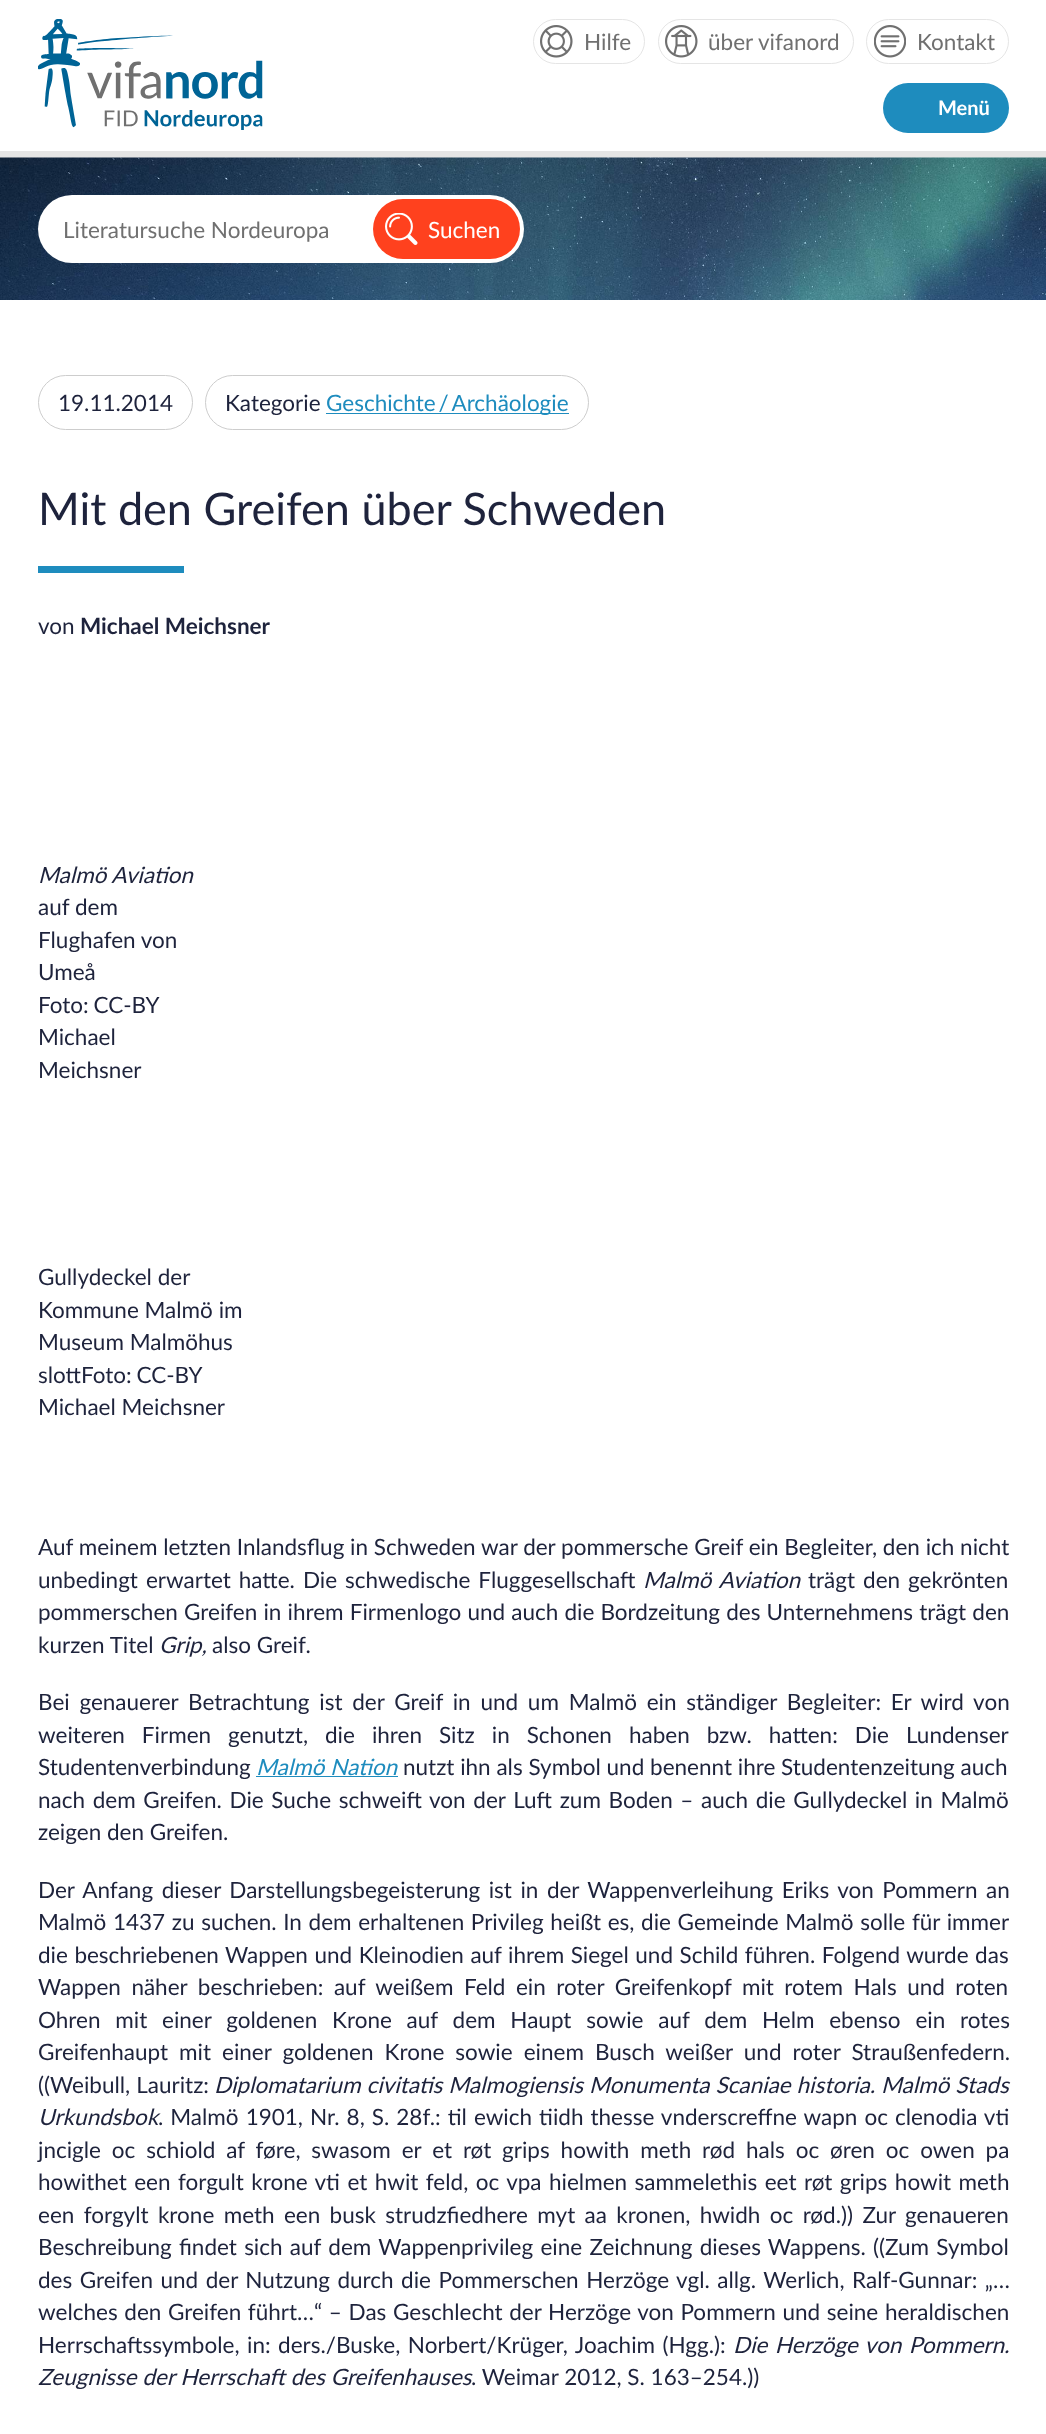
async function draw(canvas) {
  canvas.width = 1046
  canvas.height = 2434
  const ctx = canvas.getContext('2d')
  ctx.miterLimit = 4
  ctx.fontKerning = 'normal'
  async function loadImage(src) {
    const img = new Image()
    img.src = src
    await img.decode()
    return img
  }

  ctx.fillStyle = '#fff'
  ctx.fillRect(0, 0, 1046, 2434)
  ctx.fillStyle = '#e5e5e5'
  ctx.fillRect(0, 151, 1046, 7)
  ctx.drawImage(await loadImage('image0.png'), 38, 19, 225, 111)
  ctx.drawImage(await loadImage('image1.png'), 540, 25, 33, 33)
  ctx.beginPath()
  ctx.roundRect(533.5, 19.5, 111, 44, 22)
  ctx.strokeStyle = '#e5e5e5'
  ctx.stroke()
  ctx.font = '22.5px Lato'
  ctx.fillStyle = '#707070'
  ctx.fillText('Hilfe', 584, 50)
  ctx.drawImage(await loadImage('image2.png'), 665, 25, 33, 33)
  ctx.beginPath()
  ctx.roundRect(658.5, 19.5, 195, 44, 22)
  ctx.stroke()
  ctx.fillText('über vifanord', 708, 50)
  ctx.drawImage(await loadImage('image3.png'), 874, 25, 32, 33)
  ctx.beginPath()
  ctx.roundRect(866.5, 19.5, 142, 44, 22)
  ctx.stroke()
  ctx.fillText('Kontakt', 917, 50)
  ctx.fillStyle = '#1e8cbe'
  ctx.beginPath()
  ctx.roundRect(883, 83, 126, 50, 25)
  ctx.fill()
  ctx.font = 'bold 20px Lato'
  ctx.fillStyle = '#fff'
  ctx.fillText('Menü', 938, 115)
  ctx.drawImage(await loadImage('image4.png'), 0, 157, 1046, 143)
  ctx.beginPath()
  ctx.roundRect(38, 195, 486, 68, 34)
  ctx.fill()
  ctx.font = '22.5px Lato'
  ctx.fillStyle = '#707070'
  ctx.fillText('Literatursuche Nordeuropa', 63, 238)
  ctx.fillStyle = '#ff411e'
  ctx.beginPath()
  ctx.roundRect(373, 199, 147, 60, 30)
  ctx.fill()
  ctx.drawImage(await loadImage('image5.png'), 385, 213, 33, 32)
  ctx.fillStyle = '#fff'
  ctx.fillText('Suchen', 428, 238)
  ctx.beginPath()
  ctx.roundRect(38.5, 375.5, 154, 54, 27)
  ctx.strokeStyle = '#cdcdcd'
  ctx.stroke()
  ctx.fillStyle = '#1e233c'
  ctx.fillText('19.11.2014', 58, 411)
  ctx.beginPath()
  ctx.roundRect(205.5, 375.5, 383, 54, 27)
  ctx.stroke()
  ctx.fillText('Kategorie', 225, 411)
  ctx.fillStyle = '#1e8cbe'
  ctx.fillRect(326, 413, 243, 1)
  ctx.fillText('Geschichte / Archäologie', 326, 411)
  ctx.font = '45px Lato'
  ctx.fillStyle = '#1e233c'
  ctx.fillText('Mit den Greifen über Schweden', 38, 525)
  ctx.fillStyle = '#1e8cbe'
  ctx.fillRect(38, 566, 146, 7)
  ctx.font = '22.5px Lato'
  ctx.fillStyle = '#1e233c'
  ctx.fillText('von', 38, 634)
  ctx.font = 'bold 22.5px Lato'
  ctx.fillText('Michael Meichsner', 80, 634)
  ctx.font = 'italic 22.5px Lato'
  ctx.fillText('Malmö Aviation', 38, 883)
  ctx.font = '22.5px Lato'
  ctx.fillText('auf dem', 38, 915)
  ctx.fillText('Flughafen von', 38, 948)
  ctx.fillText('Umeå', 38, 980)
  ctx.wordSpacing = '-1px'
  ctx.fillText('Foto: CC-BY', 38, 1013)
  ctx.wordSpacing = '0px'
  ctx.fillText('Michael', 38, 1045)
  ctx.fillText('Meichsner', 38, 1078)
  ctx.fillText('Gullydeckel der', 38, 1285)
  ctx.fillText('Kommune Malmö im', 38, 1318)
  ctx.fillText('Museum Malmöhus', 38, 1350)
  ctx.wordSpacing = '-1px'
  ctx.fillText('slottFoto: CC-BY', 38, 1383)
  ctx.wordSpacing = '0px'
  ctx.fillText('Michael Meichsner', 38, 1415)
  ctx.fillText('Auf meinem letzten Inlandsflug in Schweden war der pommersche Greif ein Begleiter, den ich nicht', 38, 1555)
  ctx.wordSpacing = '2.25px'
  ctx.fillText('unbedingt erwartet hatte. Die schwedische Fluggesellschaft', 38, 1588)
  ctx.font = 'italic 22.5px Lato'
  ctx.fillText('Malmö Aviation', 643, 1588)
  ctx.font = '22.5px Lato'
  ctx.fillText('trägt den gekrönten', 808, 1588)
  ctx.wordSpacing = '0.4px'
  ctx.fillText('pommerschen Greifen in ihrem Firmenlogo und auch die Bordzeitung des Unternehmens trägt den', 38, 1620)
  ctx.wordSpacing = '0px'
  ctx.fillText('kurzen Titel', 38, 1653)
  ctx.font = 'italic 22.5px Lato'
  ctx.fillText('Grip,', 159, 1653)
  ctx.font = '22.5px Lato'
  ctx.fillText('also Greif.', 212, 1653)
  ctx.wordSpacing = '4px'
  ctx.fillText('Bei genauerer Betrachtung ist der Greif in und um Malmö ein ständiger Begleiter: Er wird von', 38, 1710)
  ctx.wordSpacing = '11.25px'
  ctx.fillText('weiteren Firmen genutzt, die ihren Sitz in Schonen haben bzw. hatten: Die Lundenser', 38, 1743)
  ctx.wordSpacing = '0px'
  ctx.fillText('Studentenverbindung', 38, 1775)
  ctx.font = 'italic 22.5px Lato'
  ctx.fillStyle = '#1e8cbe'
  ctx.fillText('Malmö Nation', 256, 1775)
  ctx.fillRect(256, 1776, 142, 1)
  ctx.font = '22.5px Lato'
  ctx.fillStyle = '#1e233c'
  ctx.fillText('nutzt ihn als Symbol und benennt ihre Studentenzeitung auch', 403, 1775)
  ctx.wordSpacing = '1.9px'
  ctx.fillText('nach dem Greifen. Die Suche schweift von der Luft zum Boden – auch die Gullydeckel in Malmö', 38, 1808)
  ctx.wordSpacing = '0px'
  ctx.fillText('zeigen den Greifen.', 38, 1840)
  ctx.wordSpacing = '2.75px'
  ctx.fillText('Der Anfang dieser Darstellungsbegeisterung ist in der Wappenverleihung Eriks von Pommern an', 38, 1898)
  ctx.wordSpacing = '0.9px'
  ctx.fillText('Malmö 1437 zu suchen. In dem erhaltenen Privileg heißt es, die Gemeinde Malmö solle für immer', 38, 1930)
  ctx.wordSpacing = '0.75px'
  ctx.fillText('die beschriebenen Wappen und Kleinodien auf ihrem Siegel und Schild führen. Folgend wurde das', 38, 1963)
  ctx.wordSpacing = '4.75px'
  ctx.fillText('Wappen näher beschrieben: auf weißem Feld ein roter Greifenkopf mit rotem Hals und roten', 38, 1995)
  ctx.wordSpacing = '9px'
  ctx.fillText('Ohren mit einer goldenen Krone auf dem Haupt sowie auf dem Helm ebenso ein rotes', 38, 2028)
  ctx.wordSpacing = '5.25px'
  ctx.fillText('Greifenhaupt mit einer goldenen Krone sowie einem Busch weißer und roter Straußenfedern.', 38, 2060)
  ctx.wordSpacing = '0.25px'
  ctx.fillText('((Weibull, Lauritz:', 38, 2093)
  ctx.font = 'italic 22.5px Lato'
  ctx.fillText('Diplomatarium civitatis Malmogiensis Monumenta Scaniae historia. Malmö Stads', 214, 2093)
  ctx.wordSpacing = '0px'
  ctx.fillText('Urkundsbok', 38, 2125)
  ctx.wordSpacing = '1.25px'
  ctx.font = '22.5px Lato'
  ctx.fillText('. Malmö 1901, Nr. 8, S. 28f.: til ewich tiidh thesse vnderscreffne wapn oc clenodia vti', 158, 2125)
  ctx.wordSpacing = '5.1px'
  ctx.fillText('jncigle oc schiold af føre, swasom er et røt grips howith meth rød hals oc øren oc owen pa', 38, 2158)
  ctx.wordSpacing = '1.7px'
  ctx.fillText('howithet een forgult krone vti et hwit feld, oc vpa hielmen sammelethis eet røt grips howit meth', 38, 2190)
  ctx.wordSpacing = '3.6px'
  ctx.fillText('een forgylt krone meth een busk strudzfiedhere myt aa kronen, hwidh oc rød.)) Zur genaueren', 38, 2223)
  ctx.wordSpacing = '1.5px'
  ctx.fillText('Beschreibung findet sich auf dem Wappenprivileg eine Zeichnung dieses Wappens. ((Zum Symbol', 38, 2255)
  ctx.wordSpacing = '1.75px'
  ctx.fillText('des Greifen und der Nutzung durch die Pommerschen Herzöge vgl. allg. Werlich, Ralf-Gunnar: „…', 38, 2288)
  ctx.wordSpacing = '0.9px'
  ctx.fillText('welches den Greifen führt…“ – Das Geschlecht der Herzöge von Pommern und seine heraldischen', 38, 2320)
  ctx.wordSpacing = '1.75px'
  ctx.fillText('Herrschaftssymbole, in: ders./Buske, Norbert/Krüger, Joachim (Hgg.):', 38, 2353)
  ctx.font = 'italic 22.5px Lato'
  ctx.fillText('Die Herzöge von Pommern.', 733, 2353)
  ctx.wordSpacing = '0px'
  ctx.fillText('Zeugnisse der Herrschaft des Greifenhauses', 38, 2385)
  ctx.font = '22.5px Lato'
  ctx.fillText('. Weimar 2012, S. 163–254.))', 471, 2385)
}

draw(document.querySelector('canvas'))
